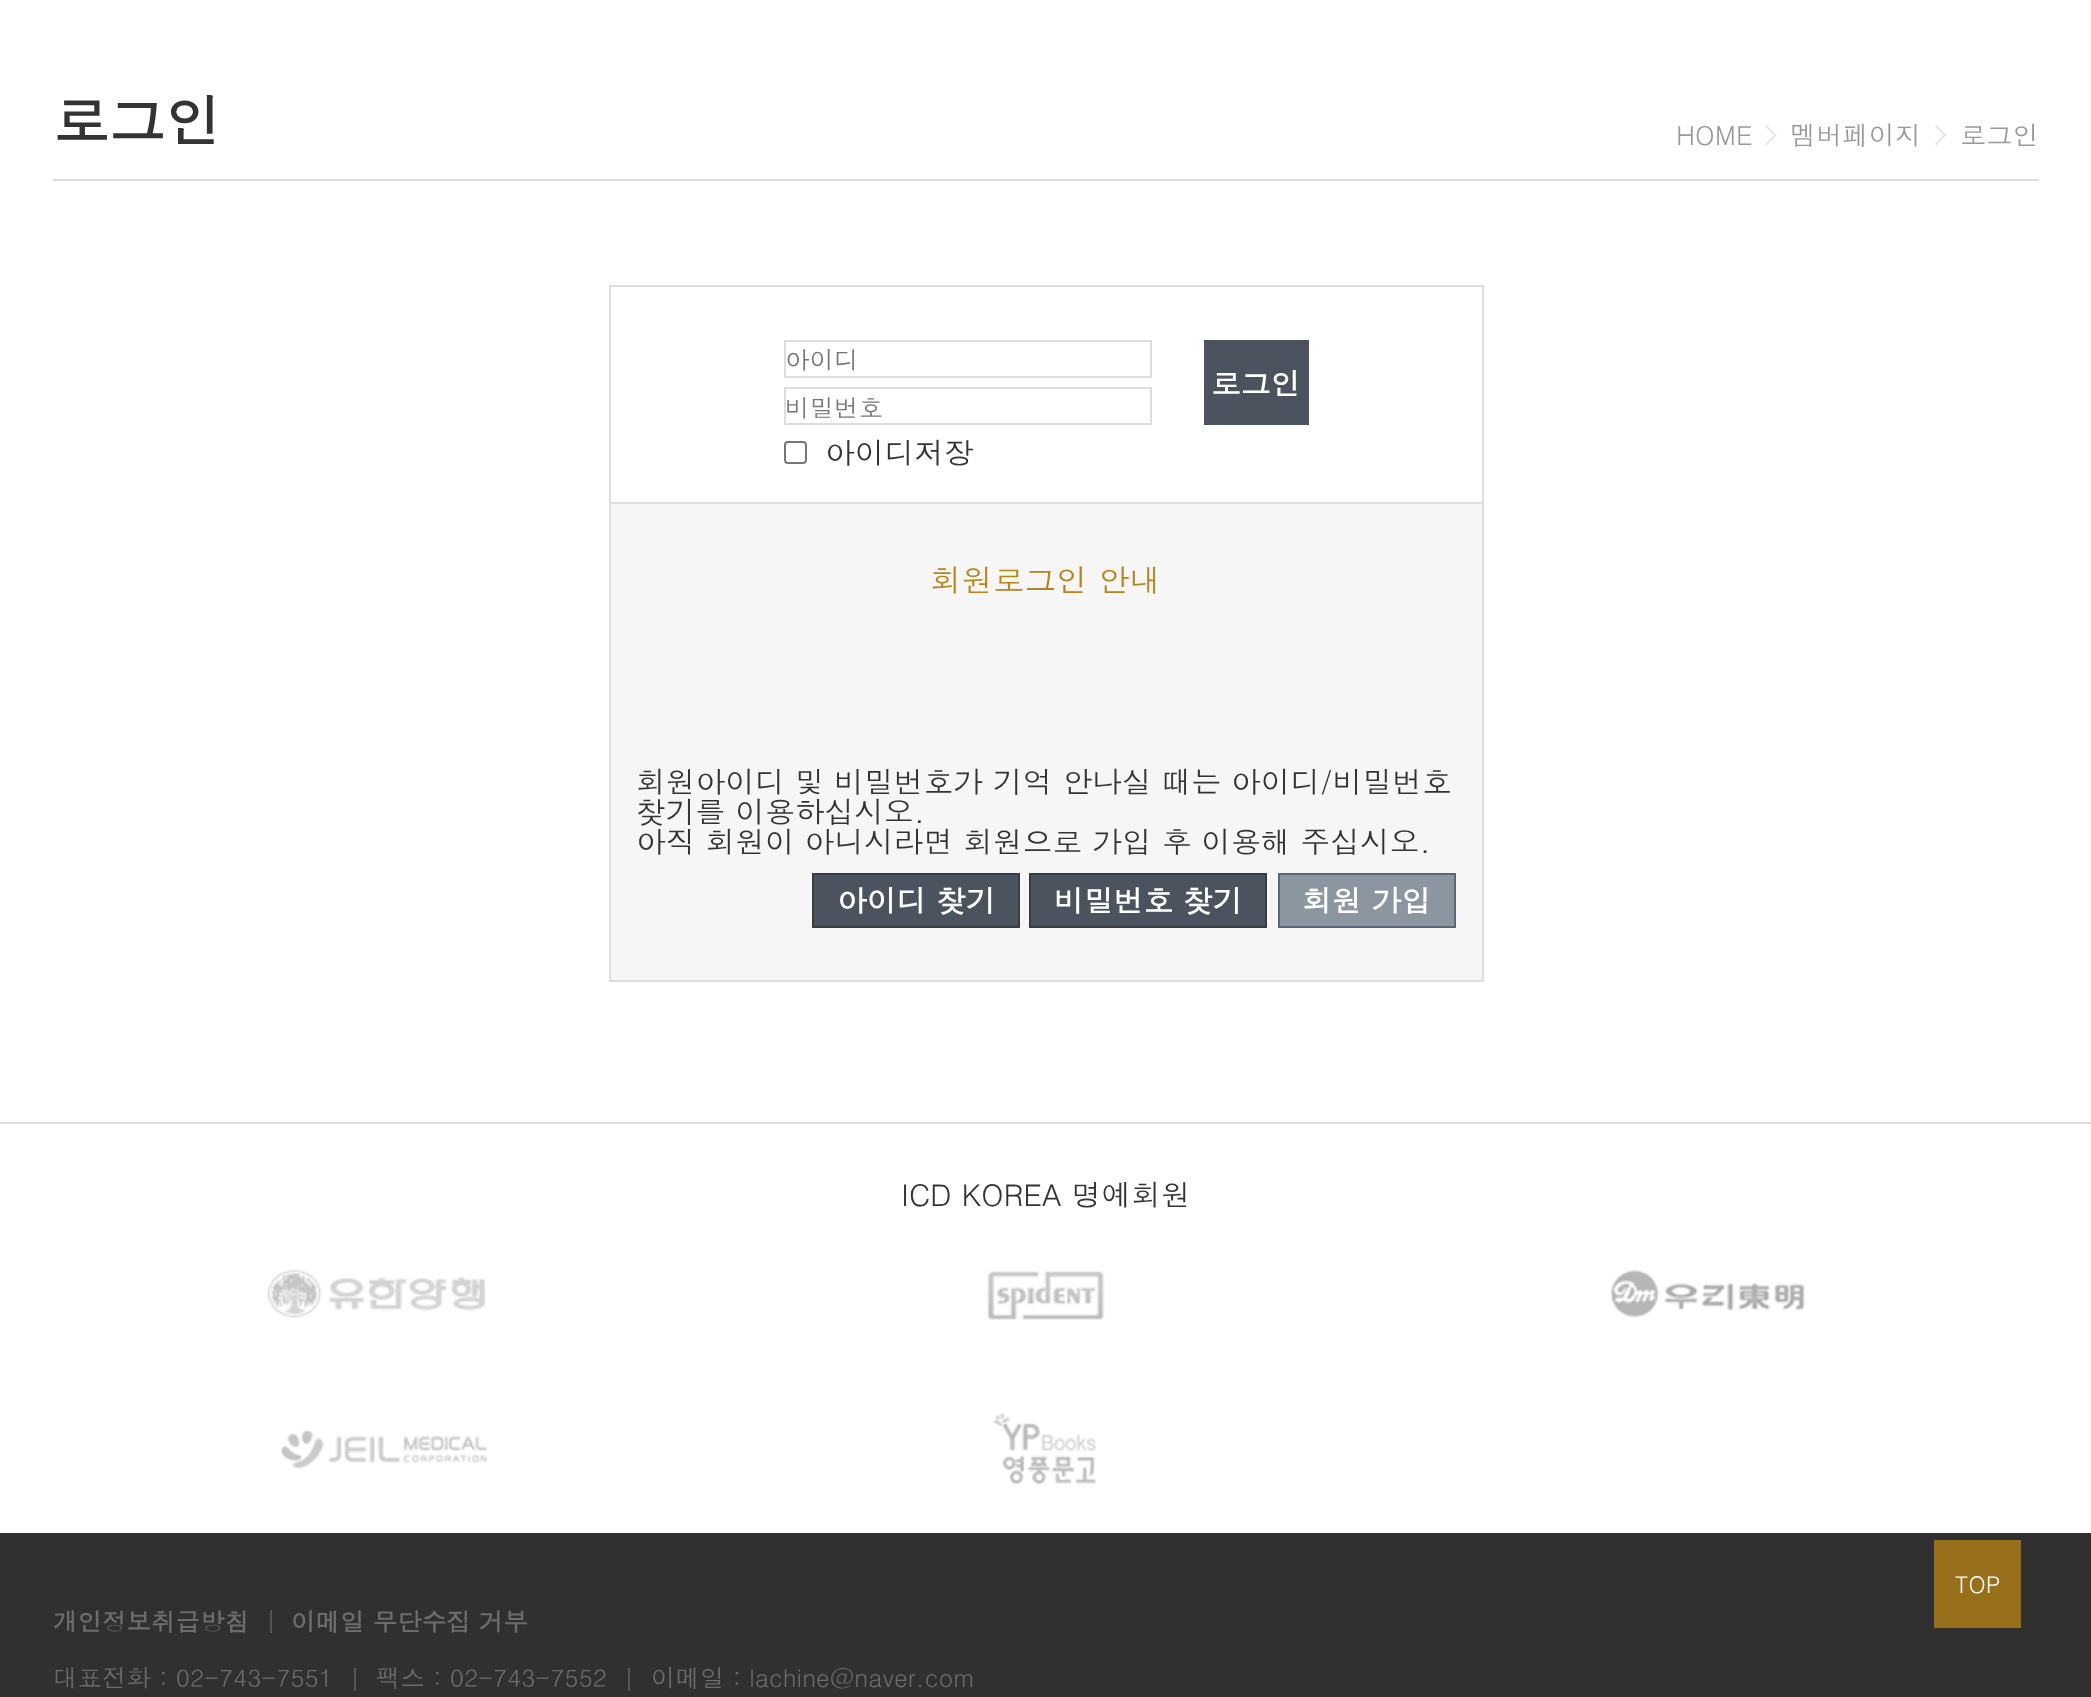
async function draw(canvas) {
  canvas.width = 2091
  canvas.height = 1697
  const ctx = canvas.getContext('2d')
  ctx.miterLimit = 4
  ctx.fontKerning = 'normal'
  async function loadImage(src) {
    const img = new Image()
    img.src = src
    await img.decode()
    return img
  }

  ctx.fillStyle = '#fff'
  ctx.fillRect(0, 0, 2091, 1697)
  ctx.fillStyle = '#ddd'
  ctx.fillRect(53, 179, 1986, 2)
  ctx.font = 'bold 56px Dotum'
  ctx.fillStyle = '#333'
  ctx.fillText('로그인', 53, 142)
  ctx.font = '26.25px Dotum'
  ctx.fillStyle = '#999'
  ctx.fillText('HOME', 1676, 145)
  ctx.drawImage(await loadImage('image0.png'), 1765, 125, 12, 20)
  ctx.fillText('멤버페이지', 1790, 145)
  ctx.drawImage(await loadImage('image1.png'), 1935, 125, 11, 20)
  ctx.fillText('로그인', 1960, 145)
  ctx.strokeStyle = '#ddd'
  ctx.lineWidth = 2
  ctx.strokeRect(610, 286, 873, 217)
  ctx.strokeRect(785, 341, 366, 36)
  ctx.font = '24.5px Dotum'
  ctx.fillStyle = '#757575'
  ctx.fillText('아이디', 785, 369)
  ctx.strokeRect(785, 388, 366, 36)
  ctx.fillText('비밀번호', 785, 417)
  ctx.fillStyle = '#4b545e'
  ctx.fillRect(1204, 340, 105, 85)
  ctx.font = 'bold 29.75px Dotum'
  ctx.fillStyle = '#fff'
  ctx.fillText('로그인', 1211, 395)
  ctx.beginPath()
  ctx.roundRect(785, 442, 21, 21, 3)
  ctx.strokeStyle = '#767676'
  ctx.stroke()
  ctx.font = '29.75px Dotum'
  ctx.fillStyle = '#333'
  ctx.fillText('아이디저장', 825, 464)
  ctx.fillStyle = '#f6f6f6'
  ctx.fillRect(611, 504, 871, 476)
  ctx.fillStyle = '#ddd'
  ctx.fillRect(1482, 504, 2, 478)
  ctx.fillRect(609, 980, 875, 2)
  ctx.fillRect(609, 504, 2, 478)
  ctx.font = '31.5px Dotum'
  ctx.fillStyle = '#b68520'
  ctx.fillText('회원로그인 안내', 930, 592)
  ctx.font = '29.75px Dotum'
  ctx.fillStyle = '#333'
  ctx.fillText('회원아이디 및 비밀번호가 기억 안나실 때는 아이디/비밀번호', 636, 793)
  ctx.fillText('찾기를 이용하십시오.', 636, 823)
  ctx.fillText('아직 회원이 아니시라면 회원으로 가입 후 이용해 주십시오.', 636, 853)
  ctx.fillStyle = '#4b545e'
  ctx.beginPath()
  ctx.rect(813, 874, 206, 53)
  ctx.fill()
  ctx.strokeStyle = '#3b3c3f'
  ctx.stroke()
  ctx.font = 'bold 29.75px Dotum'
  ctx.fillStyle = '#fff'
  ctx.fillText('아이디 찾기', 837, 912)
  ctx.fillStyle = '#4b545e'
  ctx.beginPath()
  ctx.rect(1030, 874, 236, 53)
  ctx.fill()
  ctx.stroke()
  ctx.fillStyle = '#fff'
  ctx.fillText('비밀번호 찾기', 1054, 912)
  ctx.fillStyle = '#8c96a1'
  ctx.beginPath()
  ctx.rect(1279, 874, 176, 53)
  ctx.fill()
  ctx.strokeStyle = '#5b6775'
  ctx.stroke()
  ctx.fillStyle = '#fff'
  ctx.fillText('회원 가입', 1302, 912)
  ctx.fillStyle = '#ddd'
  ctx.fillRect(0, 1122, 2091, 2)
  ctx.font = '29.75px Dotum'
  ctx.fillStyle = '#333'
  ctx.fillText('ICD KOREA 명예회원', 901, 1206)
  ctx.drawImage(await loadImage('image2.png'), 267, 1269, 218, 49)
  ctx.drawImage(await loadImage('image3.png'), 987, 1271, 118, 49)
  ctx.drawImage(await loadImage('image4.png'), 1610, 1269, 195, 49)
  ctx.drawImage(await loadImage('image5.png'), 281, 1430, 206, 39)
  ctx.drawImage(await loadImage('image6.png'), 994, 1413, 102, 71)
  ctx.fillStyle = '#303030'
  ctx.fillRect(0, 1533, 2091, 164)
  ctx.fillStyle = '#986f1a'
  ctx.fillRect(1934, 1540, 87, 88)
  ctx.font = '23px Dotum'
  ctx.fillStyle = '#fff'
  ctx.fillText('TOP', 1955, 1593)
  ctx.font = 'bold 24.5px Dotum'
  ctx.fillStyle = '#6c6c6c'
  ctx.fillText('개인정보취급방침', 53, 1631)
  ctx.fillStyle = '#555'
  ctx.fillRect(270, 1610, 2, 23)
  ctx.fillStyle = '#6c6c6c'
  ctx.fillText('이메일 무단수집 거부', 291, 1631)
  ctx.font = '24.5px Dotum'
  ctx.fillText('대표전화 : 02-743-7551', 53, 1687)
  ctx.fillStyle = '#555'
  ctx.fillRect(354, 1668, 2, 23)
  ctx.fillStyle = '#6c6c6c'
  ctx.fillText('팩스 : 02-743-7552', 376, 1687)
  ctx.fillStyle = '#555'
  ctx.fillRect(628, 1668, 2, 23)
  ctx.fillStyle = '#6c6c6c'
  ctx.fillText('이메일 : lachine@naver.com', 651, 1687)
}

draw(document.querySelector('canvas'))
